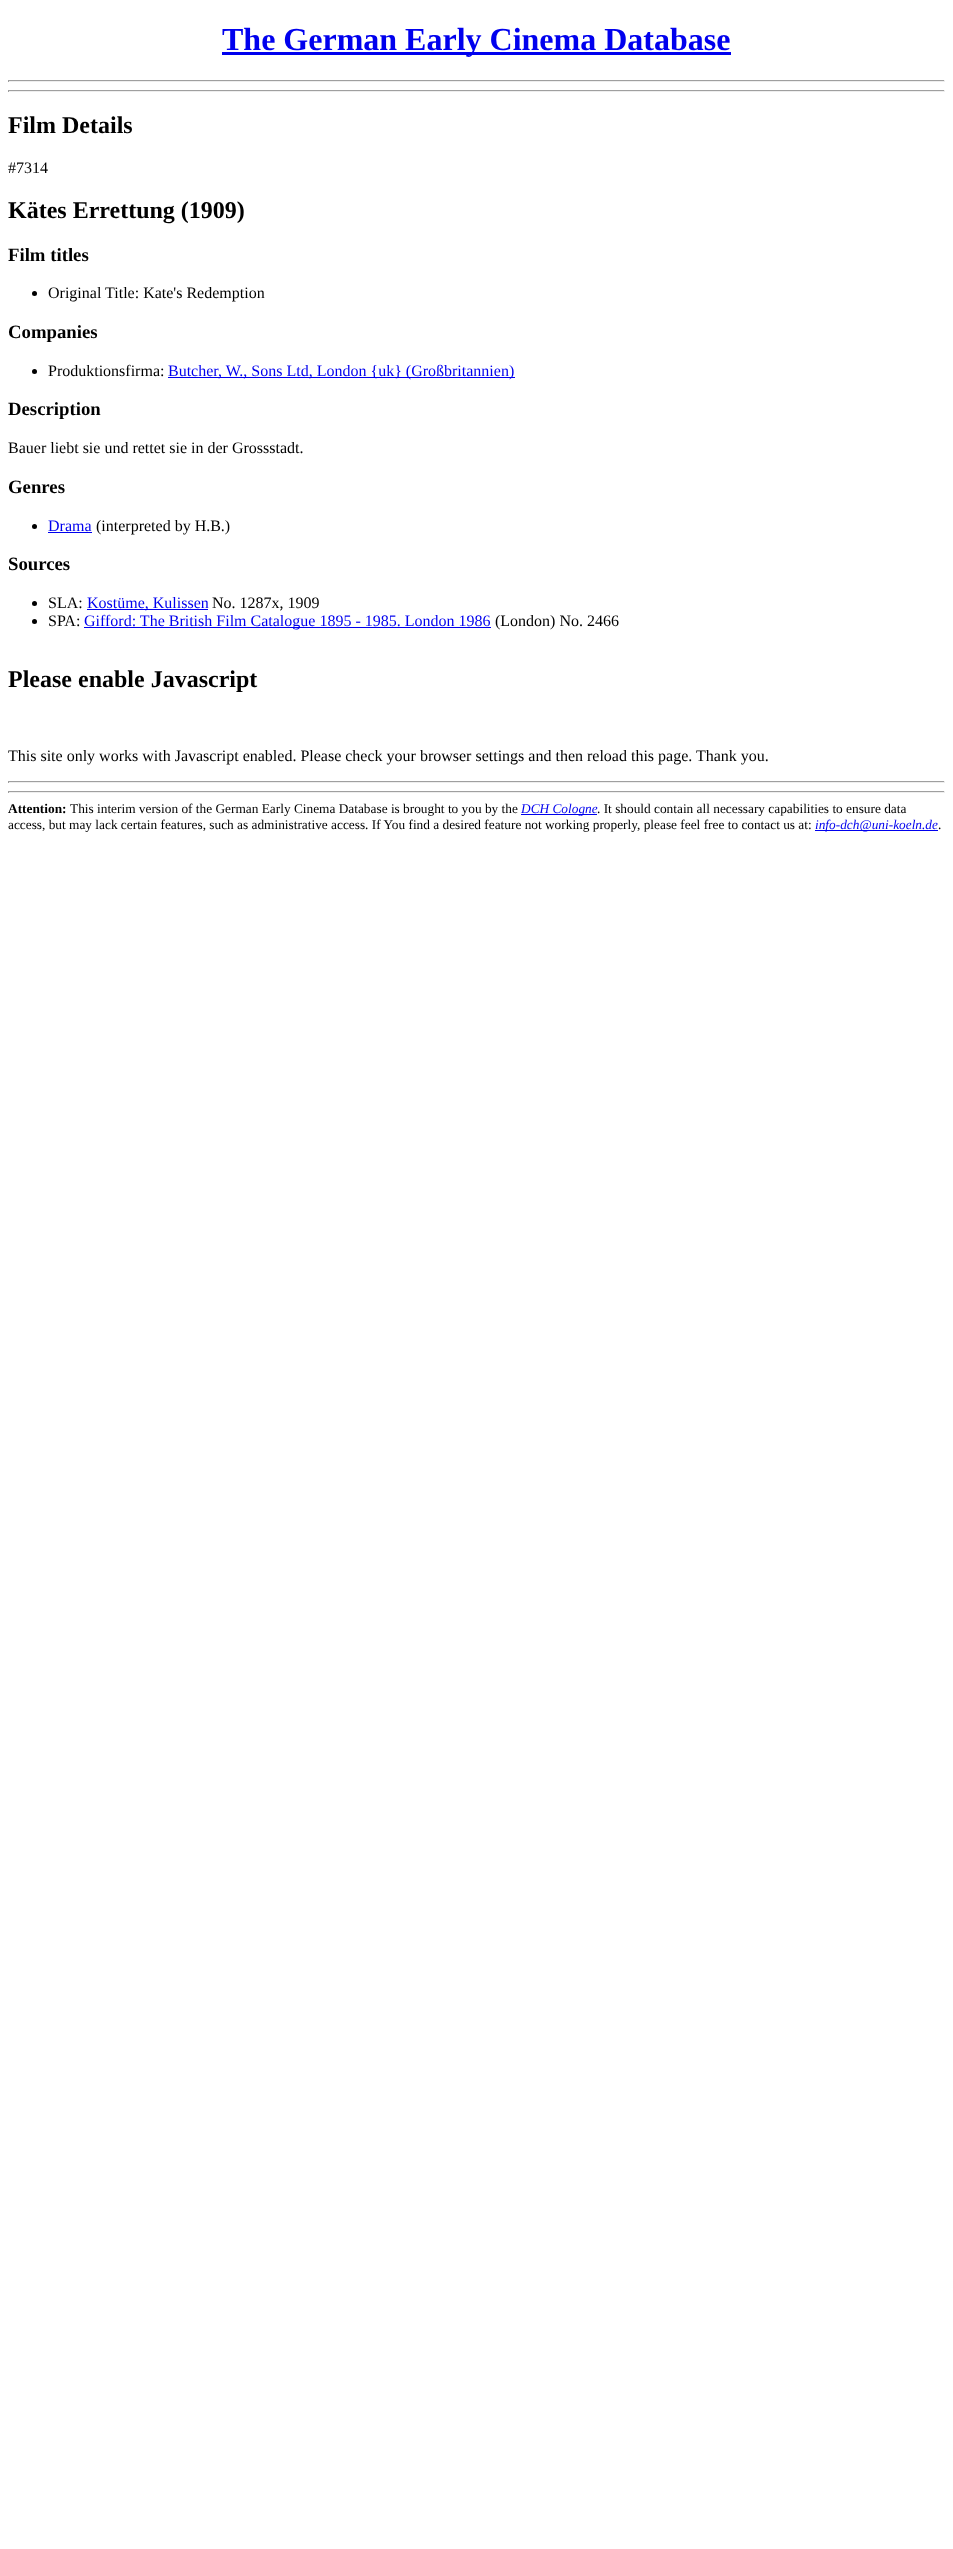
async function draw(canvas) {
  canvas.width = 953
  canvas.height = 2549
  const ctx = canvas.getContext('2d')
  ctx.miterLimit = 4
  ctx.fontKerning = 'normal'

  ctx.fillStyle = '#fff'
  ctx.fillRect(0, 0, 953, 2549)
  ctx.fillStyle = '#00e'
  ctx.fillRect(222, 52, 509, 3)
  ctx.font = 'bold 32px Liberation Serif'
  ctx.fillText('The German Early Cinema Database', 222, 50)
  ctx.fillStyle = '#9f9f9f'
  ctx.fillRect(8, 80, 937, 1)
  ctx.fillStyle = '#eee'
  ctx.fillRect(944, 80, 1, 2)
  ctx.fillRect(8, 81, 937, 1)
  ctx.fillStyle = '#9f9f9f'
  ctx.fillRect(8, 80, 1, 2)
  ctx.fillRect(8, 90, 937, 1)
  ctx.fillStyle = '#eee'
  ctx.fillRect(944, 90, 1, 2)
  ctx.fillRect(8, 91, 937, 1)
  ctx.fillStyle = '#9f9f9f'
  ctx.fillRect(8, 90, 1, 2)
  ctx.font = 'bold 24px Liberation Serif'
  ctx.fillStyle = '#000'
  ctx.fillText('Film Details', 8, 133)
  ctx.font = '16px Liberation Serif'
  ctx.fillText('#7314', 8, 173)
  ctx.font = 'bold 24px Liberation Serif'
  ctx.fillText('Kätes Errettung (1909)', 8, 218)
  ctx.font = 'bold 18.75px Liberation Serif'
  ctx.fillText('Film titles', 8, 261)
  ctx.beginPath()
  ctx.arc(34.5, 293.5, 2.5, 0, 2 * Math.PI)
  ctx.fill()
  ctx.font = '16px Liberation Serif'
  ctx.fillText('Original Title: Kate\'s Redemption', 48, 298)
  ctx.font = 'bold 18.75px Liberation Serif'
  ctx.fillText('Companies', 8, 338)
  ctx.beginPath()
  ctx.arc(34.5, 371.5, 2.5, 0, 2 * Math.PI)
  ctx.fill()
  ctx.font = '16px Liberation Serif'
  ctx.fillText('Produktionsfirma:', 48, 376)
  ctx.fillStyle = '#00e'
  ctx.fillRect(168, 377, 347, 1)
  ctx.fillText('Butcher, W., Sons Ltd, London {uk} (Großbritannien)', 168, 376)
  ctx.font = 'bold 18.75px Liberation Serif'
  ctx.fillStyle = '#000'
  ctx.fillText('Description', 8, 415)
  ctx.font = '16px Liberation Serif'
  ctx.fillText('Bauer liebt sie und rettet sie in der Grossstadt.', 8, 453)
  ctx.font = 'bold 18.75px Liberation Serif'
  ctx.fillText('Genres', 8, 493)
  ctx.beginPath()
  ctx.arc(34.5, 526.5, 2.5, 0, 2 * Math.PI)
  ctx.fill()
  ctx.font = '16px Liberation Serif'
  ctx.fillStyle = '#00e'
  ctx.fillText('Drama', 48, 531)
  ctx.fillRect(48, 532, 44, 1)
  ctx.fillStyle = '#000'
  ctx.fillText('(interpreted by H.B.)', 96, 531)
  ctx.font = 'bold 18.75px Liberation Serif'
  ctx.fillText('Sources', 8, 570)
  ctx.beginPath()
  ctx.arc(34.5, 603.5, 2.5, 0, 2 * Math.PI)
  ctx.fill()
  ctx.font = '16px Liberation Serif'
  ctx.fillText('SLA:', 48, 608)
  ctx.fillStyle = '#00e'
  ctx.fillRect(87, 609, 121, 1)
  ctx.fillText('Kostüme, Kulissen', 87, 608)
  ctx.fillStyle = '#000'
  ctx.fillText('No. 1287x, 1909', 212, 608)
  ctx.beginPath()
  ctx.arc(34.5, 621.5, 2.5, 0, 2 * Math.PI)
  ctx.fill()
  ctx.fillText('SPA:', 48, 626)
  ctx.fillStyle = '#00e'
  ctx.fillRect(84, 627, 407, 1)
  ctx.fillText('Gifford: The British Film Catalogue 1895 - 1985. London 1986', 84, 626)
  ctx.fillStyle = '#000'
  ctx.fillText('(London) No. 2466', 495, 626)
  ctx.font = 'bold 24px Liberation Serif'
  ctx.fillText('Please enable Javascript', 8, 687)
  ctx.font = '16px Liberation Serif'
  ctx.fillText('This site only works with Javascript enabled. Please check your browser settings and then reload this page. Thank you.', 8, 761)
  ctx.fillStyle = '#9f9f9f'
  ctx.fillRect(8, 781, 937, 1)
  ctx.fillStyle = '#eee'
  ctx.fillRect(944, 781, 1, 2)
  ctx.fillRect(8, 782, 937, 1)
  ctx.fillStyle = '#9f9f9f'
  ctx.fillRect(8, 781, 1, 2)
  ctx.fillRect(8, 791, 937, 1)
  ctx.fillStyle = '#eee'
  ctx.fillRect(944, 791, 1, 2)
  ctx.fillRect(8, 792, 937, 1)
  ctx.fillStyle = '#9f9f9f'
  ctx.fillRect(8, 791, 1, 2)
  ctx.font = 'bold 13.33px Liberation Serif'
  ctx.fillStyle = '#000'
  ctx.fillText('Attention:', 8, 813)
  ctx.font = '13.33px Liberation Serif'
  ctx.fillText('This interim version of the German Early Cinema Database is brought to you by the', 70, 813)
  ctx.fillStyle = '#00e'
  ctx.fillRect(521, 814, 76, 1)
  ctx.font = 'italic 13.33px Liberation Serif'
  ctx.fillText('DCH Cologne', 521, 813)
  ctx.font = '13.33px Liberation Serif'
  ctx.fillStyle = '#000'
  ctx.fillText('. It should contain all necessary capabilities to ensure data', 597, 813)
  ctx.fillText('access, but may lack certain features, such as administrative access. If You find a desired feature not working properly, please feel free to contact us at:', 8, 829)
  ctx.fillStyle = '#00e'
  ctx.fillRect(815, 830, 123, 1)
  ctx.font = 'italic 13.33px Liberation Serif'
  ctx.fillText('info-dch@uni-koeln.de', 815, 829)
  ctx.font = '13.33px Liberation Serif'
  ctx.fillStyle = '#000'
  ctx.fillText('.', 938, 829)
}

draw(document.querySelector('canvas'))
